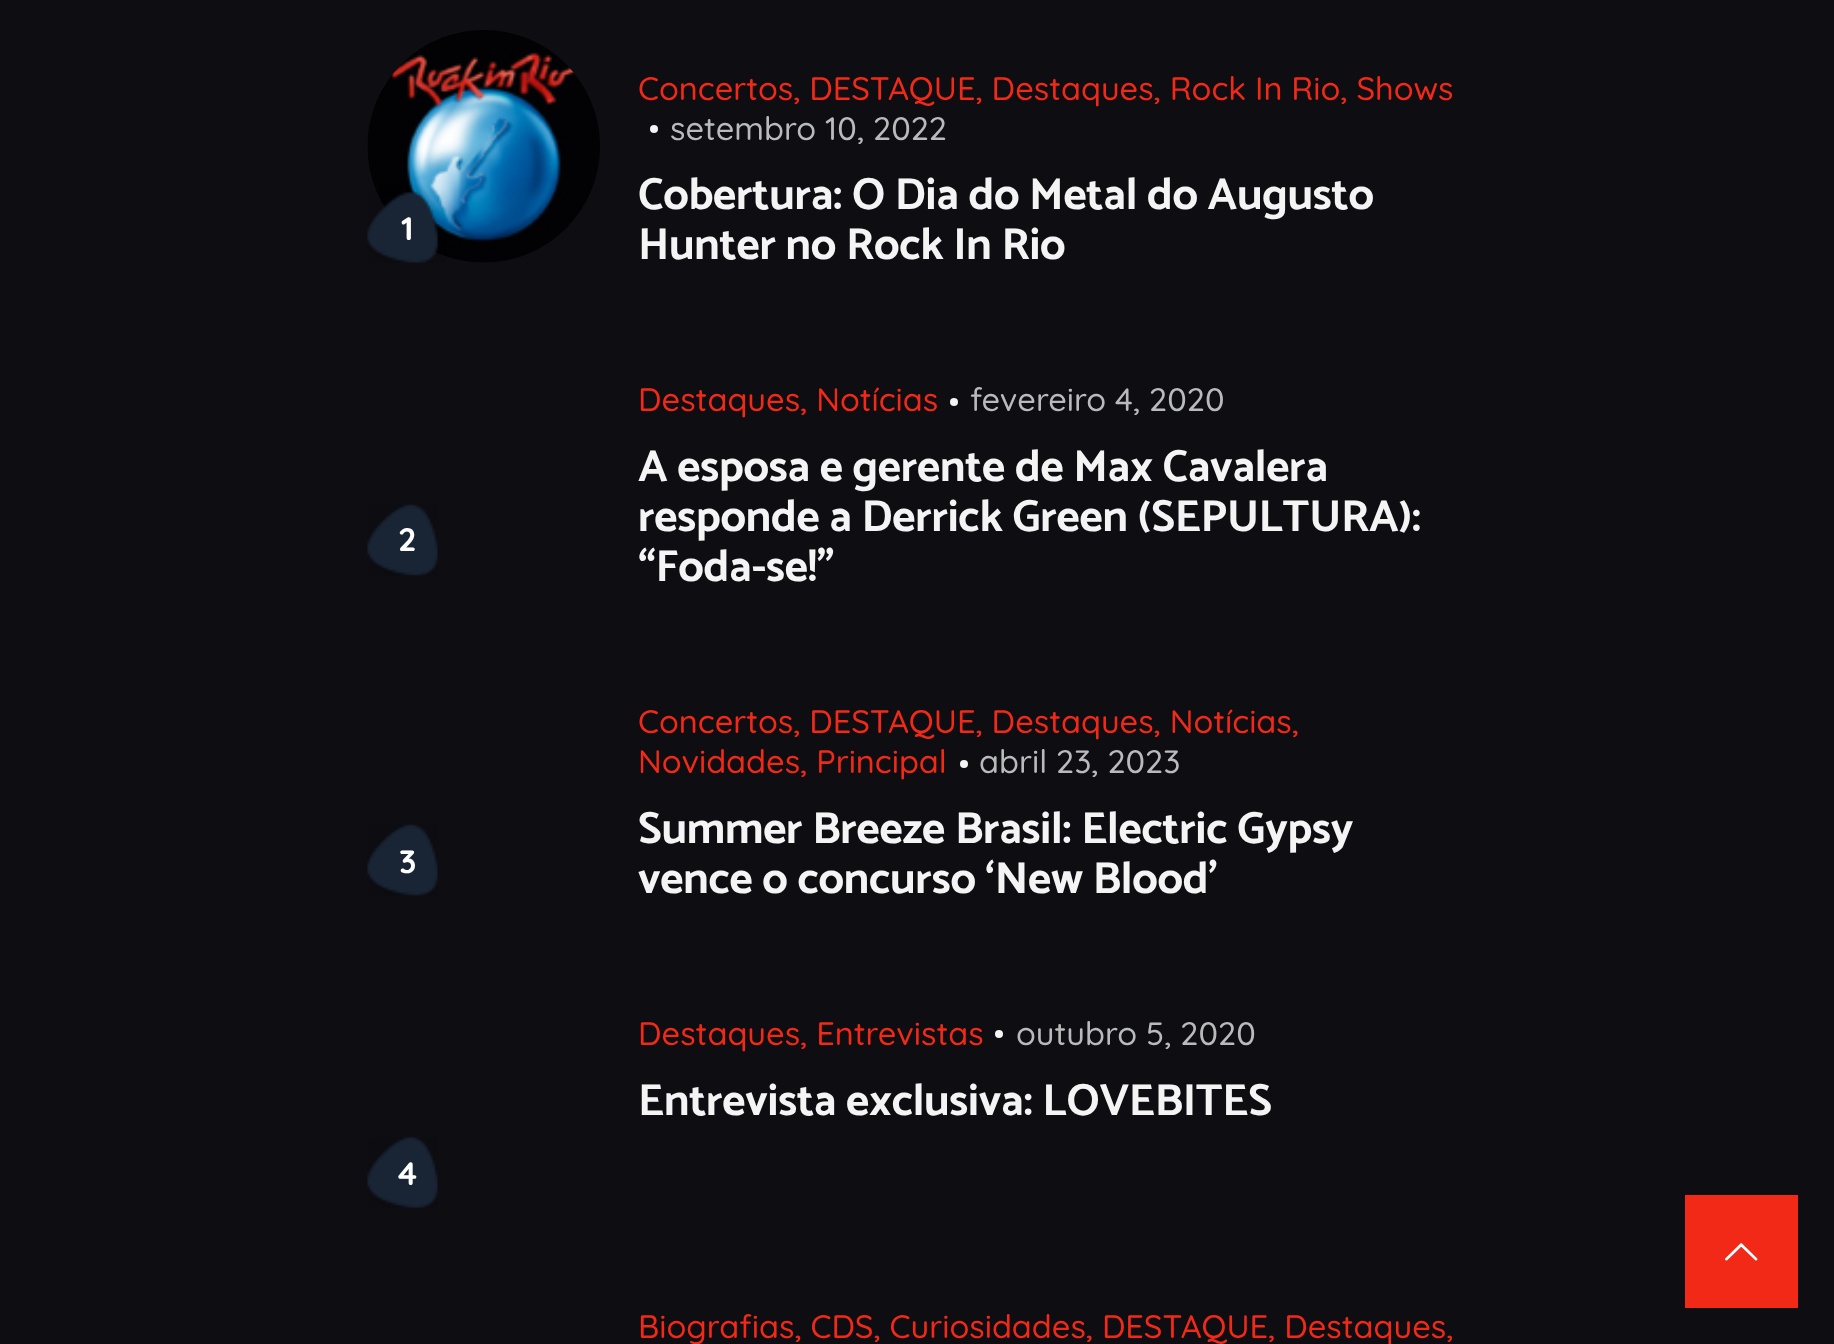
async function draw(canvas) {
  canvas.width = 1834
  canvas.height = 1344
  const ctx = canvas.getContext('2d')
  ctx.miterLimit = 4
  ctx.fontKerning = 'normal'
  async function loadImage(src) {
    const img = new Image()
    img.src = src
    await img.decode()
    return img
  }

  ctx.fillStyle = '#0e0d12'
  ctx.fillRect(0, 0, 1834, 1344)
  ctx.drawImage(await loadImage('image0.png'), 367, 30, 233, 233)
  ctx.drawImage(await loadImage('image1.png'), 367, 185, 80, 78)
  ctx.font = 'bold 32.5px Quicksand'
  ctx.fillStyle = '#fff'
  ctx.fillText('1', 401, 240)
  ctx.font = '500 32.5px Quicksand'
  ctx.fillStyle = '#f32918'
  ctx.fillText('Concertos, DESTAQUE, Destaques, Rock In Rio, Shows', 638, 100)
  ctx.fillStyle = '#f4f4f4'
  ctx.beginPath()
  ctx.arc(654, 129, 4, 0, 2 * Math.PI)
  ctx.fill()
  ctx.fillStyle = '#b8babb'
  ctx.fillText('setembro 10, 2022', 670, 140)
  ctx.letterSpacing = '-0.25px'
  ctx.font = 'bold 45px Catamaran'
  ctx.fillStyle = '#f4f4f4'
  ctx.fillText('Cobertura: O Dia do Metal do Augusto', 638, 209)
  ctx.fillText('Hunter no Rock In Rio', 638, 259)
  ctx.drawImage(await loadImage('image2.png'), 367, 504, 71, 72)
  ctx.letterSpacing = '0px'
  ctx.font = 'bold 32.5px Quicksand'
  ctx.fillStyle = '#fff'
  ctx.fillText('2', 398, 551)
  ctx.font = '500 32.5px Quicksand'
  ctx.fillStyle = '#f32918'
  ctx.fillText('Destaques, Notícias', 638, 411)
  ctx.fillStyle = '#f4f4f4'
  ctx.beginPath()
  ctx.arc(954, 402, 4, 0, 2 * Math.PI)
  ctx.fill()
  ctx.fillStyle = '#b8babb'
  ctx.fillText('fevereiro 4, 2020', 970, 411)
  ctx.letterSpacing = '-0.25px'
  ctx.font = 'bold 45px Catamaran'
  ctx.fillStyle = '#f4f4f4'
  ctx.fillText('A esposa e gerente de Max Cavalera', 638, 481)
  ctx.fillText('responde a Derrick Green (SEPULTURA):', 638, 531)
  ctx.fillText('“Foda-se!”', 638, 581)
  ctx.drawImage(await loadImage('image3.png'), 367, 824, 71, 72)
  ctx.letterSpacing = '0px'
  ctx.font = 'bold 32.5px Quicksand'
  ctx.fillStyle = '#fff'
  ctx.fillText('3', 399, 873)
  ctx.font = '500 32.5px Quicksand'
  ctx.fillStyle = '#f32918'
  ctx.fillText('Concertos, DESTAQUE, Destaques, Notícias,', 638, 733)
  ctx.fillText('Novidades, Principal', 638, 773)
  ctx.fillStyle = '#f4f4f4'
  ctx.beginPath()
  ctx.arc(964, 764, 4, 0, 2 * Math.PI)
  ctx.fill()
  ctx.fillStyle = '#b8babb'
  ctx.fillText('abril 23, 2023', 979, 773)
  ctx.letterSpacing = '-0.25px'
  ctx.font = 'bold 45px Catamaran'
  ctx.fillStyle = '#f4f4f4'
  ctx.fillText('Summer Breeze Brasil: Electric Gypsy', 638, 843)
  ctx.fillText('vence o concurso ‘New Blood’', 638, 893)
  ctx.letterSpacing = '0px'
  ctx.font = '500 32.5px Quicksand'
  ctx.fillStyle = '#f32918'
  ctx.fillText('Destaques, Entrevistas', 638, 1045)
  ctx.fillStyle = '#f4f4f4'
  ctx.beginPath()
  ctx.arc(999, 1034, 4, 0, 2 * Math.PI)
  ctx.fill()
  ctx.fillStyle = '#b8babb'
  ctx.fillText('outubro 5, 2020', 1016, 1045)
  ctx.letterSpacing = '-0.25px'
  ctx.font = 'bold 45px Catamaran'
  ctx.fillStyle = '#f4f4f4'
  ctx.fillText('Entrevista exclusiva: LOVEBITES', 638, 1115)
  ctx.drawImage(await loadImage('image4.png'), 367, 1137, 71, 71)
  ctx.letterSpacing = '0px'
  ctx.font = 'bold 32.5px Quicksand'
  ctx.fillStyle = '#fff'
  ctx.fillText('4', 398, 1185)
  ctx.font = '500 32.5px Quicksand'
  ctx.fillStyle = '#f32918'
  ctx.fillText('Biografias, CDS, Curiosidades, DESTAQUE, Destaques,', 638, 1338)
  ctx.fillRect(1685, 1195, 113, 113)
  ctx.drawImage(await loadImage('image5.png'), 1725, 1243, 33, 18)
}

draw(document.querySelector('canvas'))
